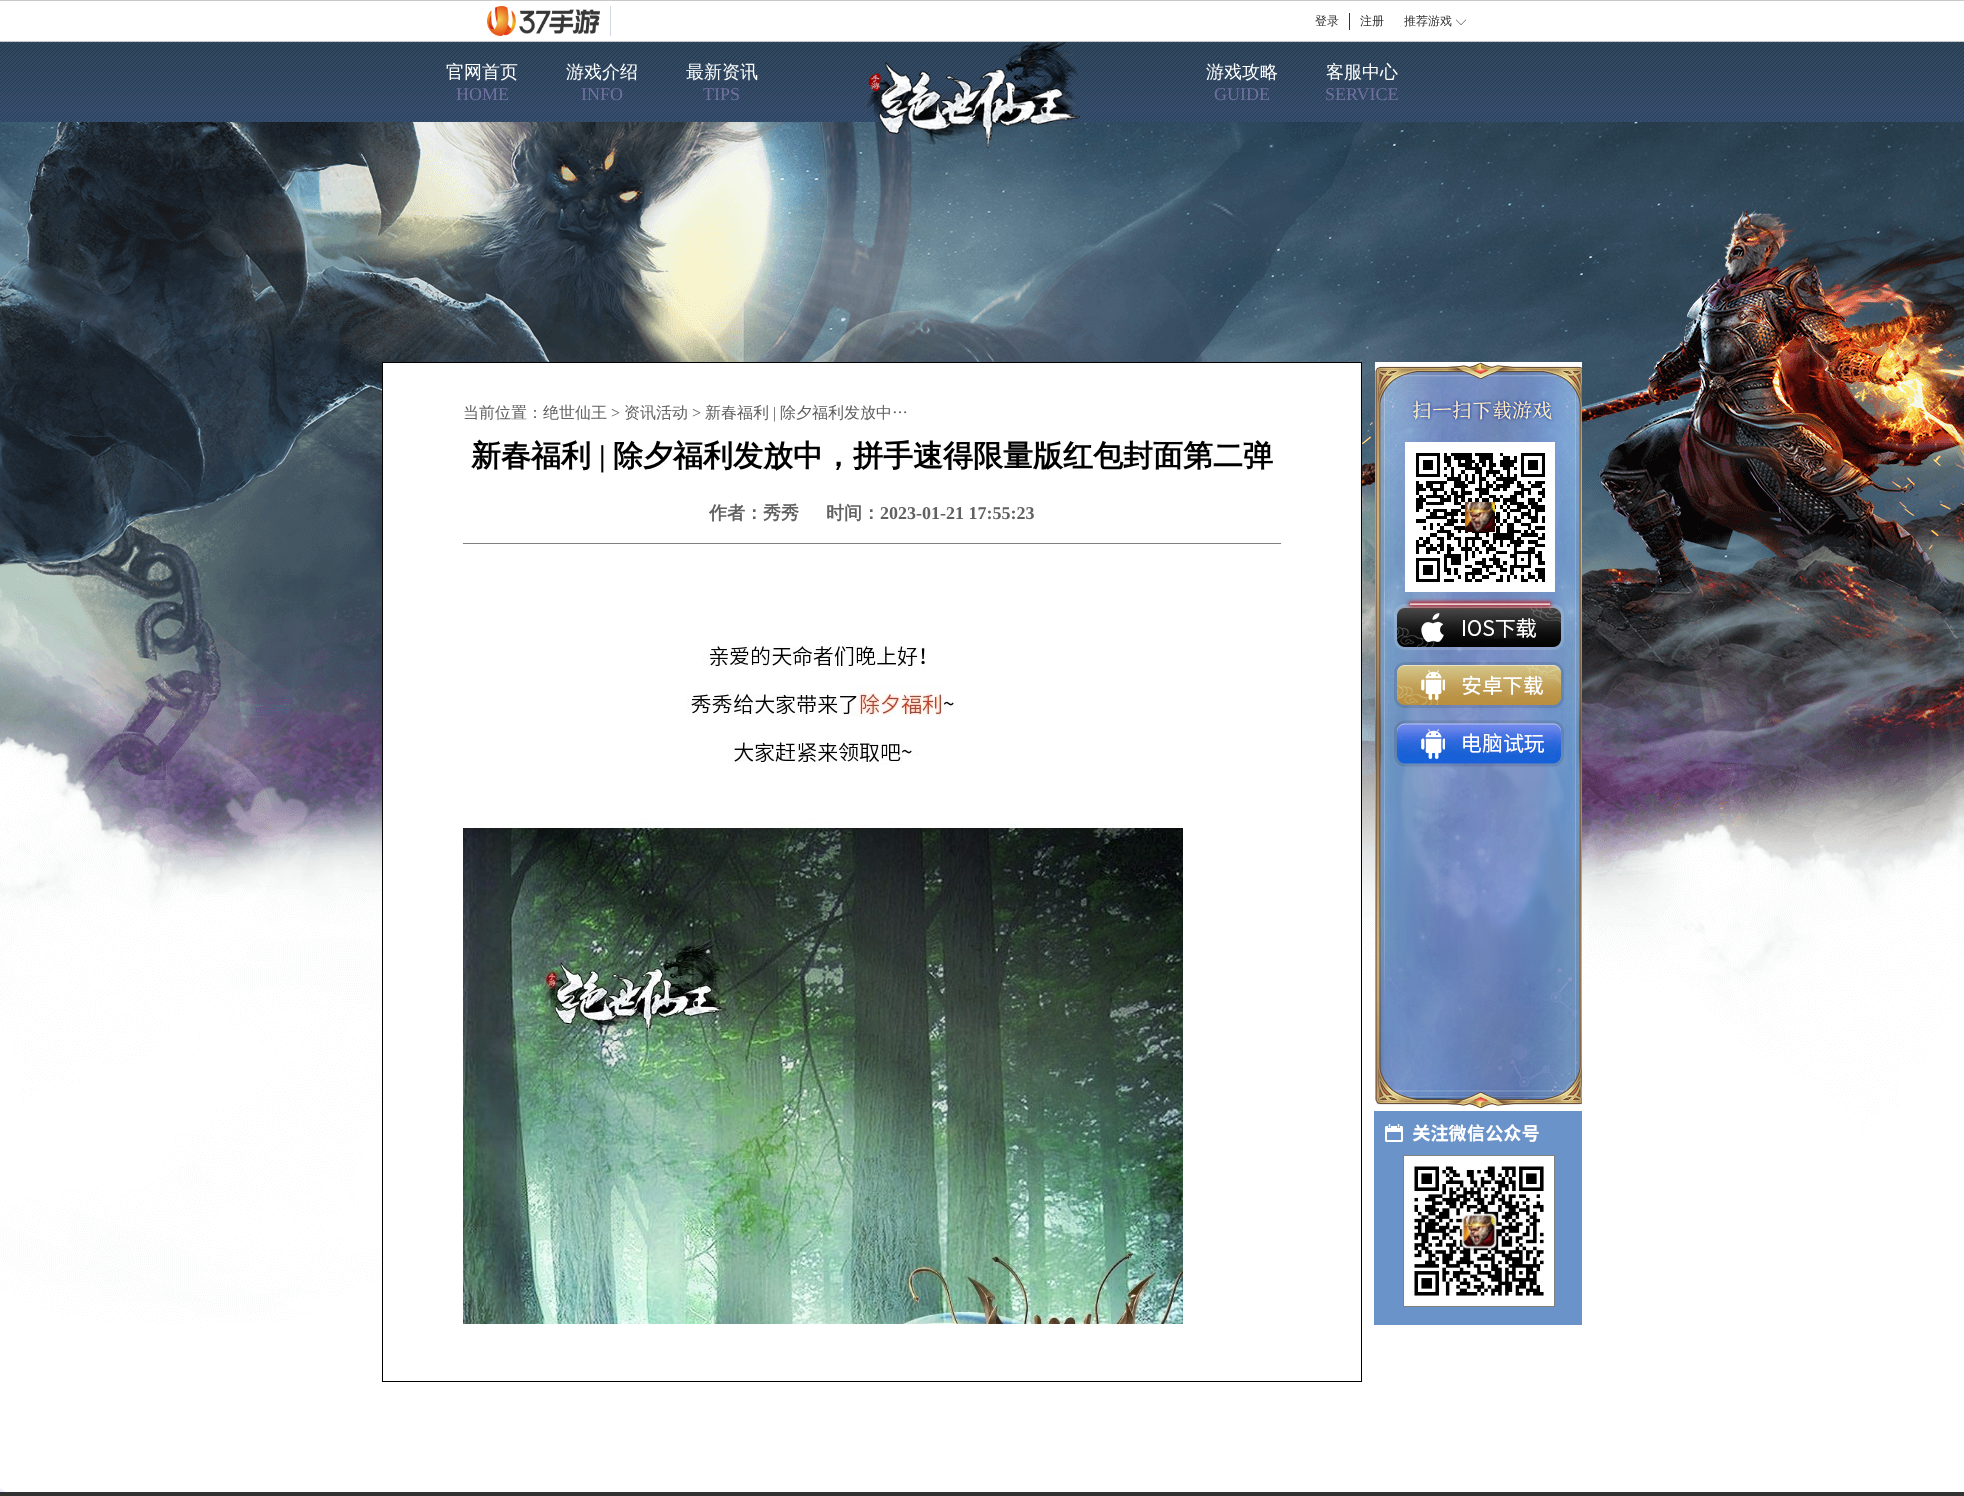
async function draw(canvas) {
  canvas.width = 1964
  canvas.height = 1496
  const ctx = canvas.getContext('2d')
  ctx.miterLimit = 4
  ctx.fontKerning = 'normal'
  async function loadImage(src) {
    const img = new Image()
    img.src = src
    await img.decode()
    return img
  }

  ctx.fillStyle = '#fff'
  ctx.fillRect(0, 0, 1964, 1496)
  ctx.fillStyle = '#c9c9c9'
  ctx.fillRect(0, 0, 1964, 1)
  ctx.fillRect(0, 41, 1964, 1)
  ctx.fillStyle = '#d2d7e3'
  ctx.fillRect(610, 6, 1, 30)
  ctx.drawImage(await loadImage('image0.png'), 487, 6, 113, 30)
  ctx.fillStyle = '#333'
  ctx.fillRect(1349, 13, 1, 17)
  ctx.font = '500 12px WenQuanYi Zen Hei'
  ctx.fillText('登录', 1315, 25)
  ctx.fillText('注册', 1360, 25)
  ctx.fillText('推荐游戏', 1404, 25)
  ctx.drawImage(await loadImage('image1.png'), 1455, 19, 12, 6)
  ctx.drawImage(await loadImage('image2.png'), 0, 122, 1964, 1370)
  ctx.drawImage(await loadImage('image3.png'), 0, 42, 1964, 80)
  ctx.font = '500 18px WenQuanYi Zen Hei'
  ctx.fillStyle = '#fff'
  ctx.fillText('官网首页', 446, 78)
  ctx.font = '18px Liberation Serif'
  ctx.fillStyle = '#70719f'
  ctx.fillText('HOME', 456, 100)
  ctx.font = '500 18px WenQuanYi Zen Hei'
  ctx.fillStyle = '#fff'
  ctx.fillText('游戏介绍', 566, 78)
  ctx.font = '18px Liberation Serif'
  ctx.fillStyle = '#70719f'
  ctx.fillText('INFO', 581, 100)
  ctx.font = '500 18px WenQuanYi Zen Hei'
  ctx.fillStyle = '#fff'
  ctx.fillText('最新资讯', 686, 78)
  ctx.font = '18px Liberation Serif'
  ctx.fillStyle = '#70719f'
  ctx.fillText('TIPS', 703, 100)
  ctx.drawImage(await loadImage('image4.png'), 864, 42, 216, 106)
  ctx.font = '500 18px WenQuanYi Zen Hei'
  ctx.fillStyle = '#fff'
  ctx.fillText('游戏攻略', 1206, 78)
  ctx.font = '18px Liberation Serif'
  ctx.fillStyle = '#70719f'
  ctx.fillText('GUIDE', 1214, 100)
  ctx.font = '500 18px WenQuanYi Zen Hei'
  ctx.fillStyle = '#fff'
  ctx.fillText('客服中心', 1326, 78)
  ctx.font = '18px Liberation Serif'
  ctx.fillStyle = '#70719f'
  ctx.fillText('SERVICE', 1325, 100)
  ctx.fillStyle = '#fff'
  ctx.fillRect(383, 363, 978, 926)
  ctx.strokeStyle = '#000'
  ctx.strokeRect(382.5, 362.5, 979, 1019)
  ctx.font = '500 16px WenQuanYi Zen Hei'
  ctx.fillStyle = '#616161'
  ctx.fillText('当前位置：绝世仙王', 463, 418)
  ctx.font = '16px Liberation Serif'
  ctx.fillText('>', 611, 418)
  ctx.font = '500 16px WenQuanYi Zen Hei'
  ctx.fillText('资讯活动', 624, 418)
  ctx.font = '16px Liberation Serif'
  ctx.fillText('>', 692, 418)
  ctx.font = '500 16px WenQuanYi Zen Hei'
  ctx.fillText('新春福利', 705, 418)
  ctx.font = '16px Liberation Serif'
  ctx.fillText('|', 773, 418)
  ctx.font = '500 16px WenQuanYi Zen Hei'
  ctx.fillText('除夕福利发放中…', 780, 418)
  ctx.fillStyle = '#808080'
  ctx.fillRect(463, 543, 818, 1)
  ctx.font = 'bold 30px WenQuanYi Zen Hei'
  ctx.fillStyle = '#000'
  ctx.fillText('新春福利', 471, 466)
  ctx.font = 'bold 30px Liberation Serif'
  ctx.fillText('|', 599, 466)
  ctx.font = 'bold 30px WenQuanYi Zen Hei'
  ctx.fillText('除夕福利发放中，拼手速得限量版红包封面第二弹', 613, 466)
  ctx.font = 'bold 18px WenQuanYi Zen Hei'
  ctx.fillStyle = '#616161'
  ctx.fillText('作者：秀秀', 709, 519)
  ctx.fillText('时间：', 826, 519)
  ctx.font = 'bold 18px Liberation Serif'
  ctx.fillText('2023-01-21 17:55:23', 880, 519)
  ctx.drawImage(await loadImage('image5.png'), 463, 645, 720, 679)
  ctx.drawImage(await loadImage('image6.png'), 1375, 362, 207, 747)
  ctx.drawImage(await loadImage('image7.png'), 1405, 442, 150, 150)
  ctx.drawImage(await loadImage('image9.png'), 1394, 604, 170, 46)
  ctx.drawImage(await loadImage('image8.png'), 1405, 598, 150, 12)
  ctx.drawImage(await loadImage('image10.png'), 1394, 662, 170, 46)
  ctx.drawImage(await loadImage('image11.png'), 1394, 720, 170, 47)
  ctx.drawImage(await loadImage('image12.png'), 1374, 1111, 208, 214)
  ctx.strokeStyle = '#808080'
  ctx.strokeRect(1403.5, 1155.5, 151, 151)
  ctx.drawImage(await loadImage('image13.png'), 1404, 1156, 150, 150)
  ctx.fillStyle = '#333'
  ctx.fillRect(0, 1492, 1964, 4)
}

draw(document.querySelector('canvas'))
